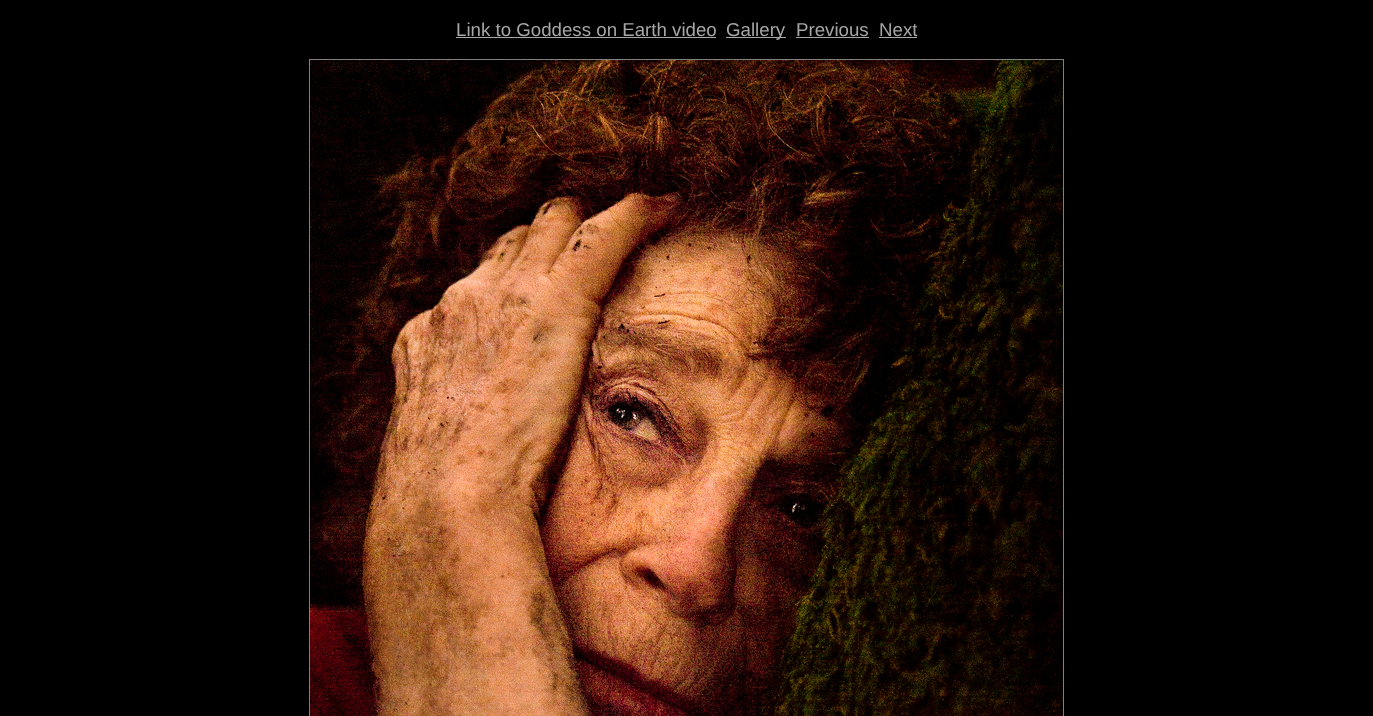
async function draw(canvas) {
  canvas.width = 1373
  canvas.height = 716
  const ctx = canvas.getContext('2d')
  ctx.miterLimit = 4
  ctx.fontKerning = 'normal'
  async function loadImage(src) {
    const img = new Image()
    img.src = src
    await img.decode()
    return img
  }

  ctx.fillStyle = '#000'
  ctx.fillRect(0, 0, 1373, 716)
  ctx.font = '18.7px Liberation Sans'
  ctx.fillStyle = '#a8a7a7'
  ctx.fillText('Link to Goddess on Earth video', 456, 36)
  ctx.fillRect(456, 37, 260, 1)
  ctx.fillRect(726, 37, 60, 1)
  ctx.fillText('Gallery', 726, 36)
  ctx.fillText('Previous', 796, 36)
  ctx.fillRect(796, 37, 73, 1)
  ctx.fillText('Next', 879, 36)
  ctx.fillRect(879, 37, 38, 1)
  ctx.fillStyle = '#808080'
  ctx.fillRect(309, 59, 755, 657)
  ctx.drawImage(await loadImage('image0.png'), 310, 60, 753, 656)
}

draw(document.querySelector('canvas'))
